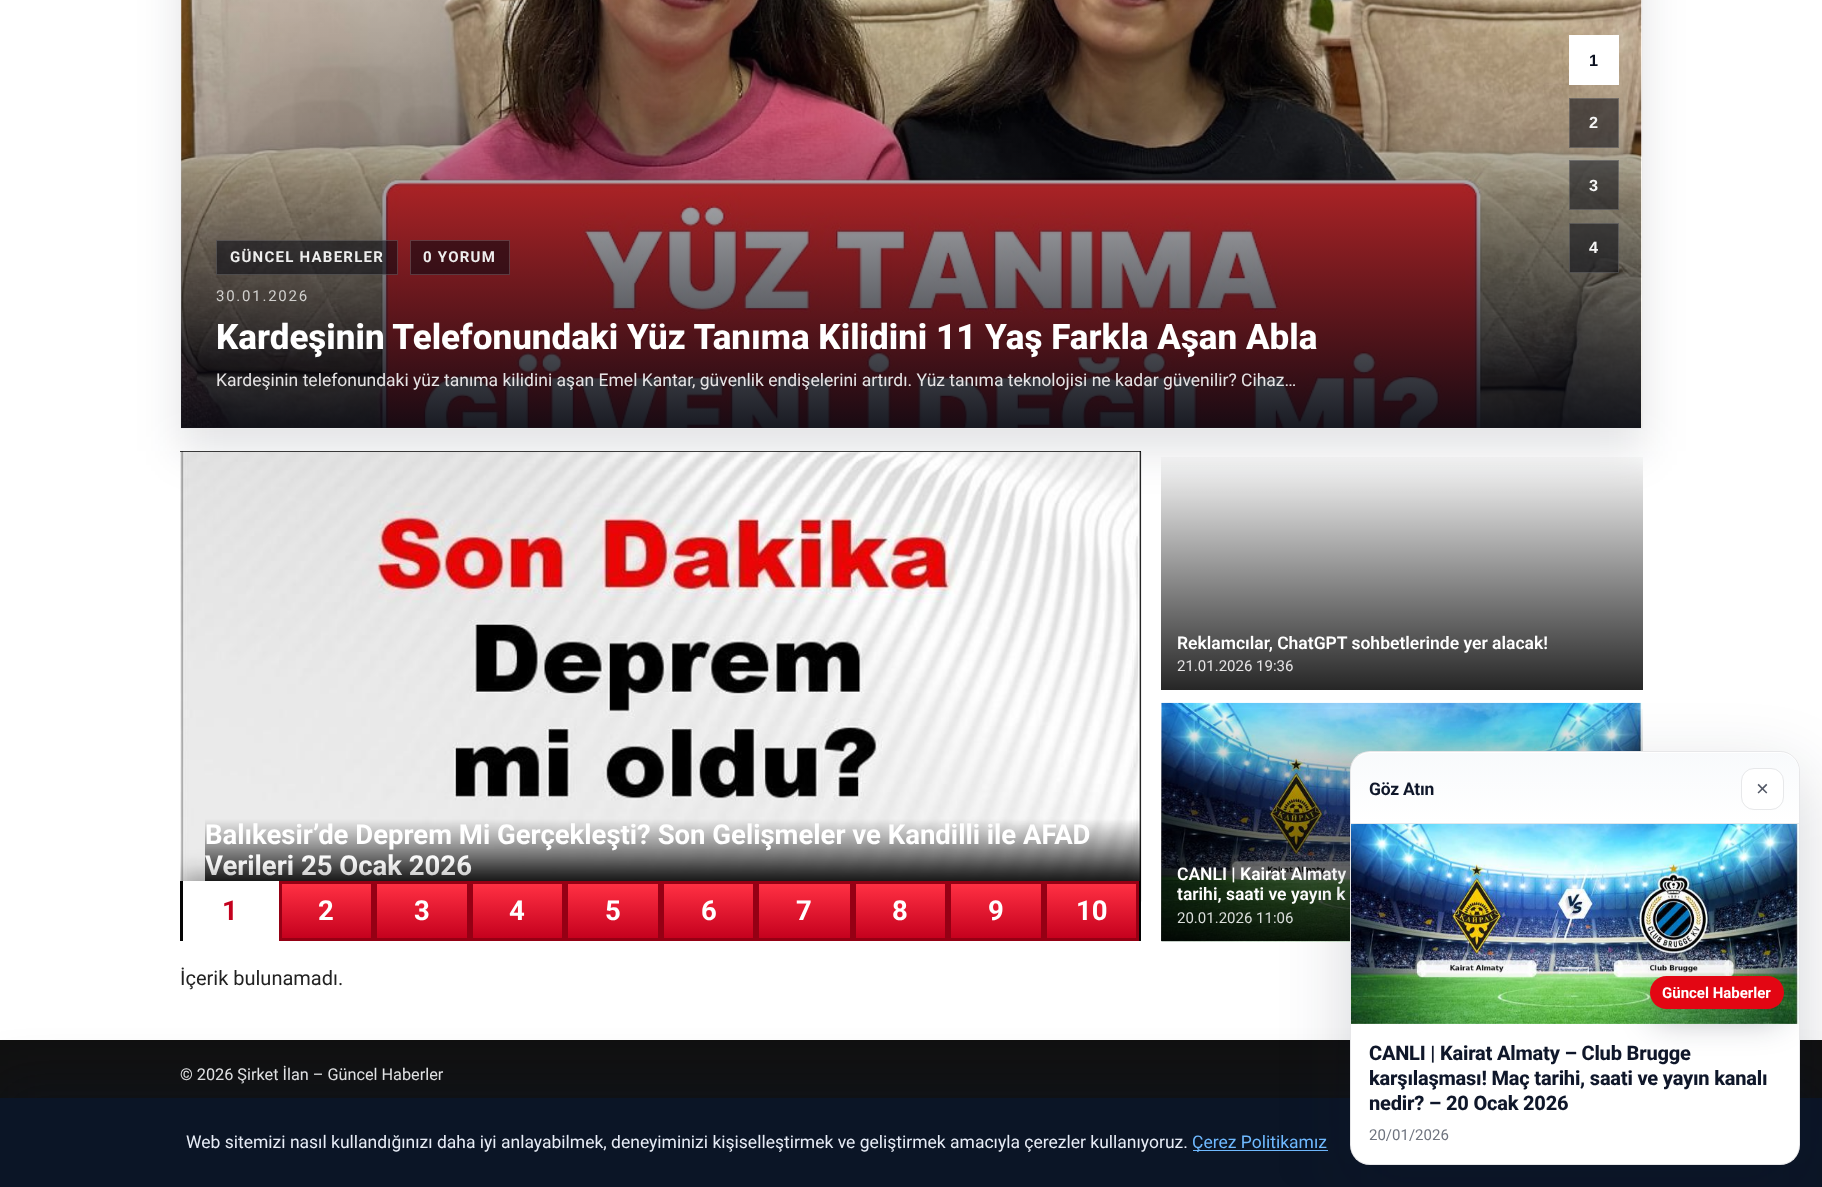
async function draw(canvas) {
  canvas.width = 1822
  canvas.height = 1187
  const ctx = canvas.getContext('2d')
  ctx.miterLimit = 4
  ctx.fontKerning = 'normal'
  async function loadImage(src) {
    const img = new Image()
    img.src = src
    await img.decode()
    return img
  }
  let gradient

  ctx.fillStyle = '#fff'
  ctx.fillRect(0, 0, 1822, 1187)
  ctx.fillStyle = '#1018281f'
  ctx.filter = 'blur(22px)'
  ctx.beginPath()
  ctx.rect(180, -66, 1463, 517)
  ctx.fill()
  ctx.filter = 'none'
  ctx.fillStyle = '#fff'
  ctx.beginPath()
  ctx.rect(180.5, -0.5, 1462, 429)
  ctx.fill()
  ctx.strokeStyle = '#ececee'
  ctx.stroke()
  ctx.drawImage(await loadImage('image0.png'), 181, 0, 1461, 428)
  gradient = ctx.createLinearGradient(911, 428, 911, -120)
  gradient.addColorStop(0, '#050710eb')
  gradient.addColorStop(0.55, '#05071033')
  gradient.addColorStop(1, '#05071000')
  ctx.fillStyle = gradient
  ctx.fillRect(181, 0, 1460, 428)
  ctx.fillStyle = '#fff'
  ctx.fillRect(1569, 35, 50, 50)
  ctx.font = 'bold 16.25px Liberation Sans'
  ctx.fillStyle = '#0b1120'
  ctx.fillText('1', 1589, 66)
  ctx.fillStyle = '#0507108c'
  ctx.fillRect(1569, 98, 50, 50)
  ctx.strokeStyle = '#ffffff2e'
  ctx.strokeRect(1569.5, 98.5, 49, 49)
  ctx.fillStyle = '#f6f6f6'
  ctx.fillText('2', 1589, 128)
  ctx.fillStyle = '#0507108c'
  ctx.fillRect(1569, 160, 50, 50)
  ctx.strokeRect(1569.5, 160.5, 49, 49)
  ctx.fillStyle = '#f6f6f6'
  ctx.fillText('3', 1589, 191)
  ctx.fillStyle = '#0507108c'
  ctx.fillRect(1569, 223, 50, 50)
  ctx.strokeRect(1569.5, 223.5, 49, 49)
  ctx.fillStyle = '#f6f6f6'
  ctx.fillText('4', 1589, 253)
  ctx.fillStyle = '#0507108c'
  ctx.fillRect(216, 240, 182, 35)
  ctx.strokeRect(216.5, 240.5, 181, 34)
  ctx.letterSpacing = '1.25px'
  ctx.font = 'bold 15px Roboto'
  ctx.fillStyle = '#eee'
  ctx.fillText('GÜNCEL HABERLER', 230, 262)
  ctx.fillStyle = '#0507108c'
  ctx.fillRect(410, 240, 100, 35)
  ctx.strokeRect(410.5, 240.5, 99, 34)
  ctx.fillStyle = '#eee'
  ctx.fillText('0 YORUM', 423, 262)
  ctx.letterSpacing = '1.75px'
  ctx.font = '15px Roboto'
  ctx.fillStyle = '#d1d0ce'
  ctx.fillText('30.01.2026', 216, 301)
  ctx.letterSpacing = '0px'
  ctx.font = '800 35px Roboto'
  ctx.fillStyle = '#fff'
  ctx.fillText('Kardeşinin Telefonundaki Yüz Tanıma Kilidini 11 Yaş Farkla Aşan Abla', 216, 349)
  ctx.font = '17.5px Roboto'
  ctx.fillStyle = '#e6e4e5'
  ctx.fillText('Kardeşinin telefonundaki yüz tanıma kilidini aşan Emel Kantar, güvenlik endişelerini artırdı. Yüz tanıma teknolojisi ne kadar güvenilir? Cihaz…', 216, 386)
  ctx.fillStyle = '#000'
  ctx.fillRect(180, 451, 961, 1)
  ctx.drawImage(await loadImage('image1.png'), 180, 451, 962, 451)
  ctx.font = 'bold 27.5px Roboto'
  ctx.fillStyle = '#fff'
  ctx.fillText('Balıkesir’de Deprem Mi Gerçekleşti? Son Gelişmeler ve Kandilli ile AFAD', 205, 844)
  ctx.fillText('Verileri 25 Ocak 2026', 205, 875)
  ctx.drawImage(await loadImage('image2.png'), 1161, 702, 482, 240)
  gradient = ctx.createLinearGradient(1402, 941, 1402, 703)
  gradient.addColorStop(0, '#000000d9')
  gradient.addColorStop(1, '#00000000')
  ctx.fillStyle = gradient
  ctx.fillRect(1161, 709, 482, 232)
  ctx.save()
  ctx.beginPath()
  ctx.rect(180, 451, 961, 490)
  ctx.clip()
  ctx.fillStyle = '#00000059'
  ctx.filter = 'blur(11px)'
  ctx.beginPath()
  ctx.rect(180, 874, 961, 60)
  ctx.fill()
  ctx.filter = 'none'
  ctx.restore()
  ctx.fillStyle = '#050505'
  ctx.fillRect(180, 881, 961, 60)
  ctx.fillStyle = '#fff'
  ctx.fillRect(183, 881, 96, 60)
  ctx.fillStyle = '#c4001d'
  ctx.fillText('1', 222, 920)
  gradient = ctx.createLinearGradient(326, 884, 326, 939)
  gradient.addColorStop(0, '#ff3043')
  gradient.addColorStop(1, '#c4001d')
  ctx.fillStyle = gradient
  ctx.fillRect(282, 884, 89, 54)
  ctx.strokeStyle = '#950014'
  ctx.lineWidth = 3
  ctx.strokeRect(280.5, 882.5, 92, 57)
  ctx.fillStyle = '#fff'
  ctx.fillText('2', 318, 920)
  gradient = ctx.createLinearGradient(422, 884, 422, 939)
  gradient.addColorStop(0, '#ff3043')
  gradient.addColorStop(1, '#c4001d')
  ctx.fillStyle = gradient
  ctx.fillRect(377, 884, 90, 54)
  ctx.strokeRect(375.5, 882.5, 93, 57)
  ctx.fillStyle = '#fff'
  ctx.fillText('3', 414, 920)
  gradient = ctx.createLinearGradient(518, 884, 518, 939)
  gradient.addColorStop(0, '#ff3043')
  gradient.addColorStop(1, '#c4001d')
  ctx.fillStyle = gradient
  ctx.fillRect(473, 884, 89, 54)
  ctx.strokeRect(471.5, 882.5, 92, 57)
  ctx.fillStyle = '#fff'
  ctx.fillText('4', 509, 920)
  gradient = ctx.createLinearGradient(613, 884, 613, 939)
  gradient.addColorStop(0, '#ff3043')
  gradient.addColorStop(1, '#c4001d')
  ctx.fillStyle = gradient
  ctx.fillRect(568, 884, 90, 54)
  ctx.strokeRect(566.5, 882.5, 93, 57)
  ctx.fillStyle = '#fff'
  ctx.fillText('5', 605, 920)
  gradient = ctx.createLinearGradient(709, 884, 709, 939)
  gradient.addColorStop(0, '#ff3043')
  gradient.addColorStop(1, '#c4001d')
  ctx.fillStyle = gradient
  ctx.fillRect(664, 884, 89, 54)
  ctx.strokeRect(662.5, 882.5, 92, 57)
  ctx.fillStyle = '#fff'
  ctx.fillText('6', 701, 920)
  gradient = ctx.createLinearGradient(804, 884, 804, 939)
  gradient.addColorStop(0, '#ff3043')
  gradient.addColorStop(1, '#c4001d')
  ctx.fillStyle = gradient
  ctx.fillRect(759, 884, 91, 54)
  ctx.strokeRect(757.5, 882.5, 94, 57)
  ctx.fillStyle = '#fff'
  ctx.fillText('7', 796, 920)
  gradient = ctx.createLinearGradient(900, 884, 900, 939)
  gradient.addColorStop(0, '#ff3043')
  gradient.addColorStop(1, '#c4001d')
  ctx.fillStyle = gradient
  ctx.fillRect(856, 884, 89, 54)
  ctx.strokeRect(854.5, 882.5, 92, 57)
  ctx.fillStyle = '#fff'
  ctx.fillText('8', 892, 920)
  gradient = ctx.createLinearGradient(996, 884, 996, 939)
  gradient.addColorStop(0, '#ff3043')
  gradient.addColorStop(1, '#c4001d')
  ctx.fillStyle = gradient
  ctx.fillRect(951, 884, 90, 54)
  ctx.strokeRect(949.5, 882.5, 93, 57)
  ctx.fillStyle = '#fff'
  ctx.fillText('9', 988, 920)
  gradient = ctx.createLinearGradient(1091, 884, 1091, 939)
  gradient.addColorStop(0, '#ff3043')
  gradient.addColorStop(1, '#c4001d')
  ctx.fillStyle = gradient
  ctx.fillRect(1047, 884, 89, 54)
  ctx.strokeRect(1045.5, 882.5, 92, 57)
  ctx.fillStyle = '#fff'
  ctx.fillText('10', 1076, 920)
  gradient = ctx.createLinearGradient(1402, 690, 1402, 451)
  gradient.addColorStop(0, '#000000d9')
  gradient.addColorStop(1, '#00000000')
  ctx.fillStyle = gradient
  ctx.fillRect(1161, 457, 482, 233)
  ctx.font = '600 17.5px Roboto'
  ctx.fillStyle = '#fff'
  ctx.fillText('Reklamcılar, ChatGPT sohbetlerinde yer alacak!', 1177, 649)
  ctx.font = '15px Roboto'
  ctx.fillStyle = '#e6e4e5'
  ctx.fillText('21.01.2026 19:36', 1177, 671)
  ctx.font = '600 17.5px Roboto'
  ctx.fillStyle = '#fff'
  ctx.fillText('CANLI | Kairat Almaty', 1177, 880)
  ctx.fillText('tarihi, saati ve yayın k', 1177, 900)
  ctx.font = '15px Roboto'
  ctx.fillStyle = '#dbdedb'
  ctx.fillText('20.01.2026 11:06', 1177, 923)
  ctx.font = '20px Roboto'
  ctx.fillStyle = '#222'
  ctx.fillText('İçerik bulunamadı.', 180, 985)
  ctx.fillStyle = '#111'
  ctx.fillRect(0, 1040, 1822, 58)
  ctx.font = '16.25px Roboto'
  ctx.fillStyle = '#fff'
  ctx.fillText('© 2026 Şirket İlan – Güncel Haberler', 180, 1080)
  ctx.fillStyle = '#0c152259'
  ctx.filter = 'blur(25px)'
  ctx.beginPath()
  ctx.rect(0, 1083, 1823, 90)
  ctx.fill()
  ctx.filter = 'none'
  ctx.fillStyle = '#0b1526'
  ctx.fillRect(0, 1098, 1822, 89)
  ctx.fillStyle = '#6fb9ff'
  ctx.fillRect(1193, 1150, 135, 1)
  ctx.fillStyle = '#0f172a2e'
  ctx.filter = 'blur(34.5px)'
  ctx.beginPath()
  ctx.roundRect(1350, 774, 450, 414, 20)
  ctx.fill()
  ctx.filter = 'none'
  ctx.fillStyle = '#fff'
  ctx.beginPath()
  ctx.roundRect(1350, 751, 450, 414, 20)
  ctx.fill()
  ctx.beginPath()
  ctx.roundRect(1350.5, 751.5, 449, 413, 19.5)
  ctx.strokeStyle = '#0f172a1a'
  ctx.lineWidth = 1
  ctx.stroke()
  gradient = ctx.createLinearGradient(1575, 753, 1575, 823)
  gradient.addColorStop(0, '#f8fafcf2')
  gradient.addColorStop(1, '#fffffff2')
  ctx.fillStyle = gradient
  ctx.beginPath()
  ctx.roundRect(1351, 753, 448, 70, [19, 19, 0, 0])
  ctx.fill()
  ctx.fillStyle = '#e5e8eb'
  ctx.fillRect(1351, 823, 448, 1)
  ctx.letterSpacing = '-0.25px'
  ctx.font = 'bold 17.5px Roboto'
  ctx.fillStyle = '#0f172a'
  ctx.fillText('Göz Atın', 1369, 795)
  ctx.fillStyle = '#fff'
  ctx.beginPath()
  ctx.roundRect(1741.5, 768.5, 42, 41, 12.5)
  ctx.fill()
  ctx.strokeStyle = '#e7e8ea'
  ctx.stroke()
  ctx.letterSpacing = '0px'
  ctx.font = '22px Liberation Sans'
  ctx.fillStyle = '#525866'
  ctx.fillText('×', 1756, 796)
  ctx.drawImage(await loadImage('image3.png'), 1351, 824, 448, 200)
  ctx.save()
  ctx.beginPath()
  ctx.roundRect(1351, 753, 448, 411, 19)
  ctx.clip()
  ctx.fillStyle = '#0f172a47'
  ctx.filter = 'blur(16px)'
  ctx.beginPath()
  ctx.roundRect(1650, 989, 134, 32, 16)
  ctx.fill()
  ctx.filter = 'none'
  ctx.restore()
  ctx.fillStyle = '#e30613'
  ctx.beginPath()
  ctx.roundRect(1650, 976, 134, 33, 16.5)
  ctx.fill()
  ctx.font = 'bold 15px Roboto'
  ctx.fillStyle = '#fff'
  ctx.fillText('Güncel Haberler', 1662, 998)
  ctx.letterSpacing = '-0.2px'
  ctx.font = '800 20px Roboto'
  ctx.fillStyle = '#0f172a'
  ctx.fillText('CANLI | Kairat Almaty – Club Brugge', 1369, 1060)
  ctx.fillText('karşılaşması! Maç tarihi, saati ve yayın kanalı', 1369, 1085)
  ctx.fillText('nedir? – 20 Ocak 2026', 1369, 1110)
  ctx.letterSpacing = '0px'
  ctx.font = '15px Roboto'
  ctx.fillStyle = '#6f747f'
  ctx.fillText('20/01/2026', 1369, 1140)
  ctx.font = '17.5px Roboto'
  ctx.fillStyle = '#e7ecf6'
  ctx.fillText('Web sitemizi nasıl kullandığınızı daha iyi anlayabilmek, deneyiminizi kişiselleştirmek ve geliştirmek amacıyla çerezler kullanıyoruz.', 186, 1148)
  ctx.fillStyle = '#6fb9ff'
  ctx.fillText('Çerez Politikamız', 1192, 1148)
}

draw(document.querySelector('canvas'))
